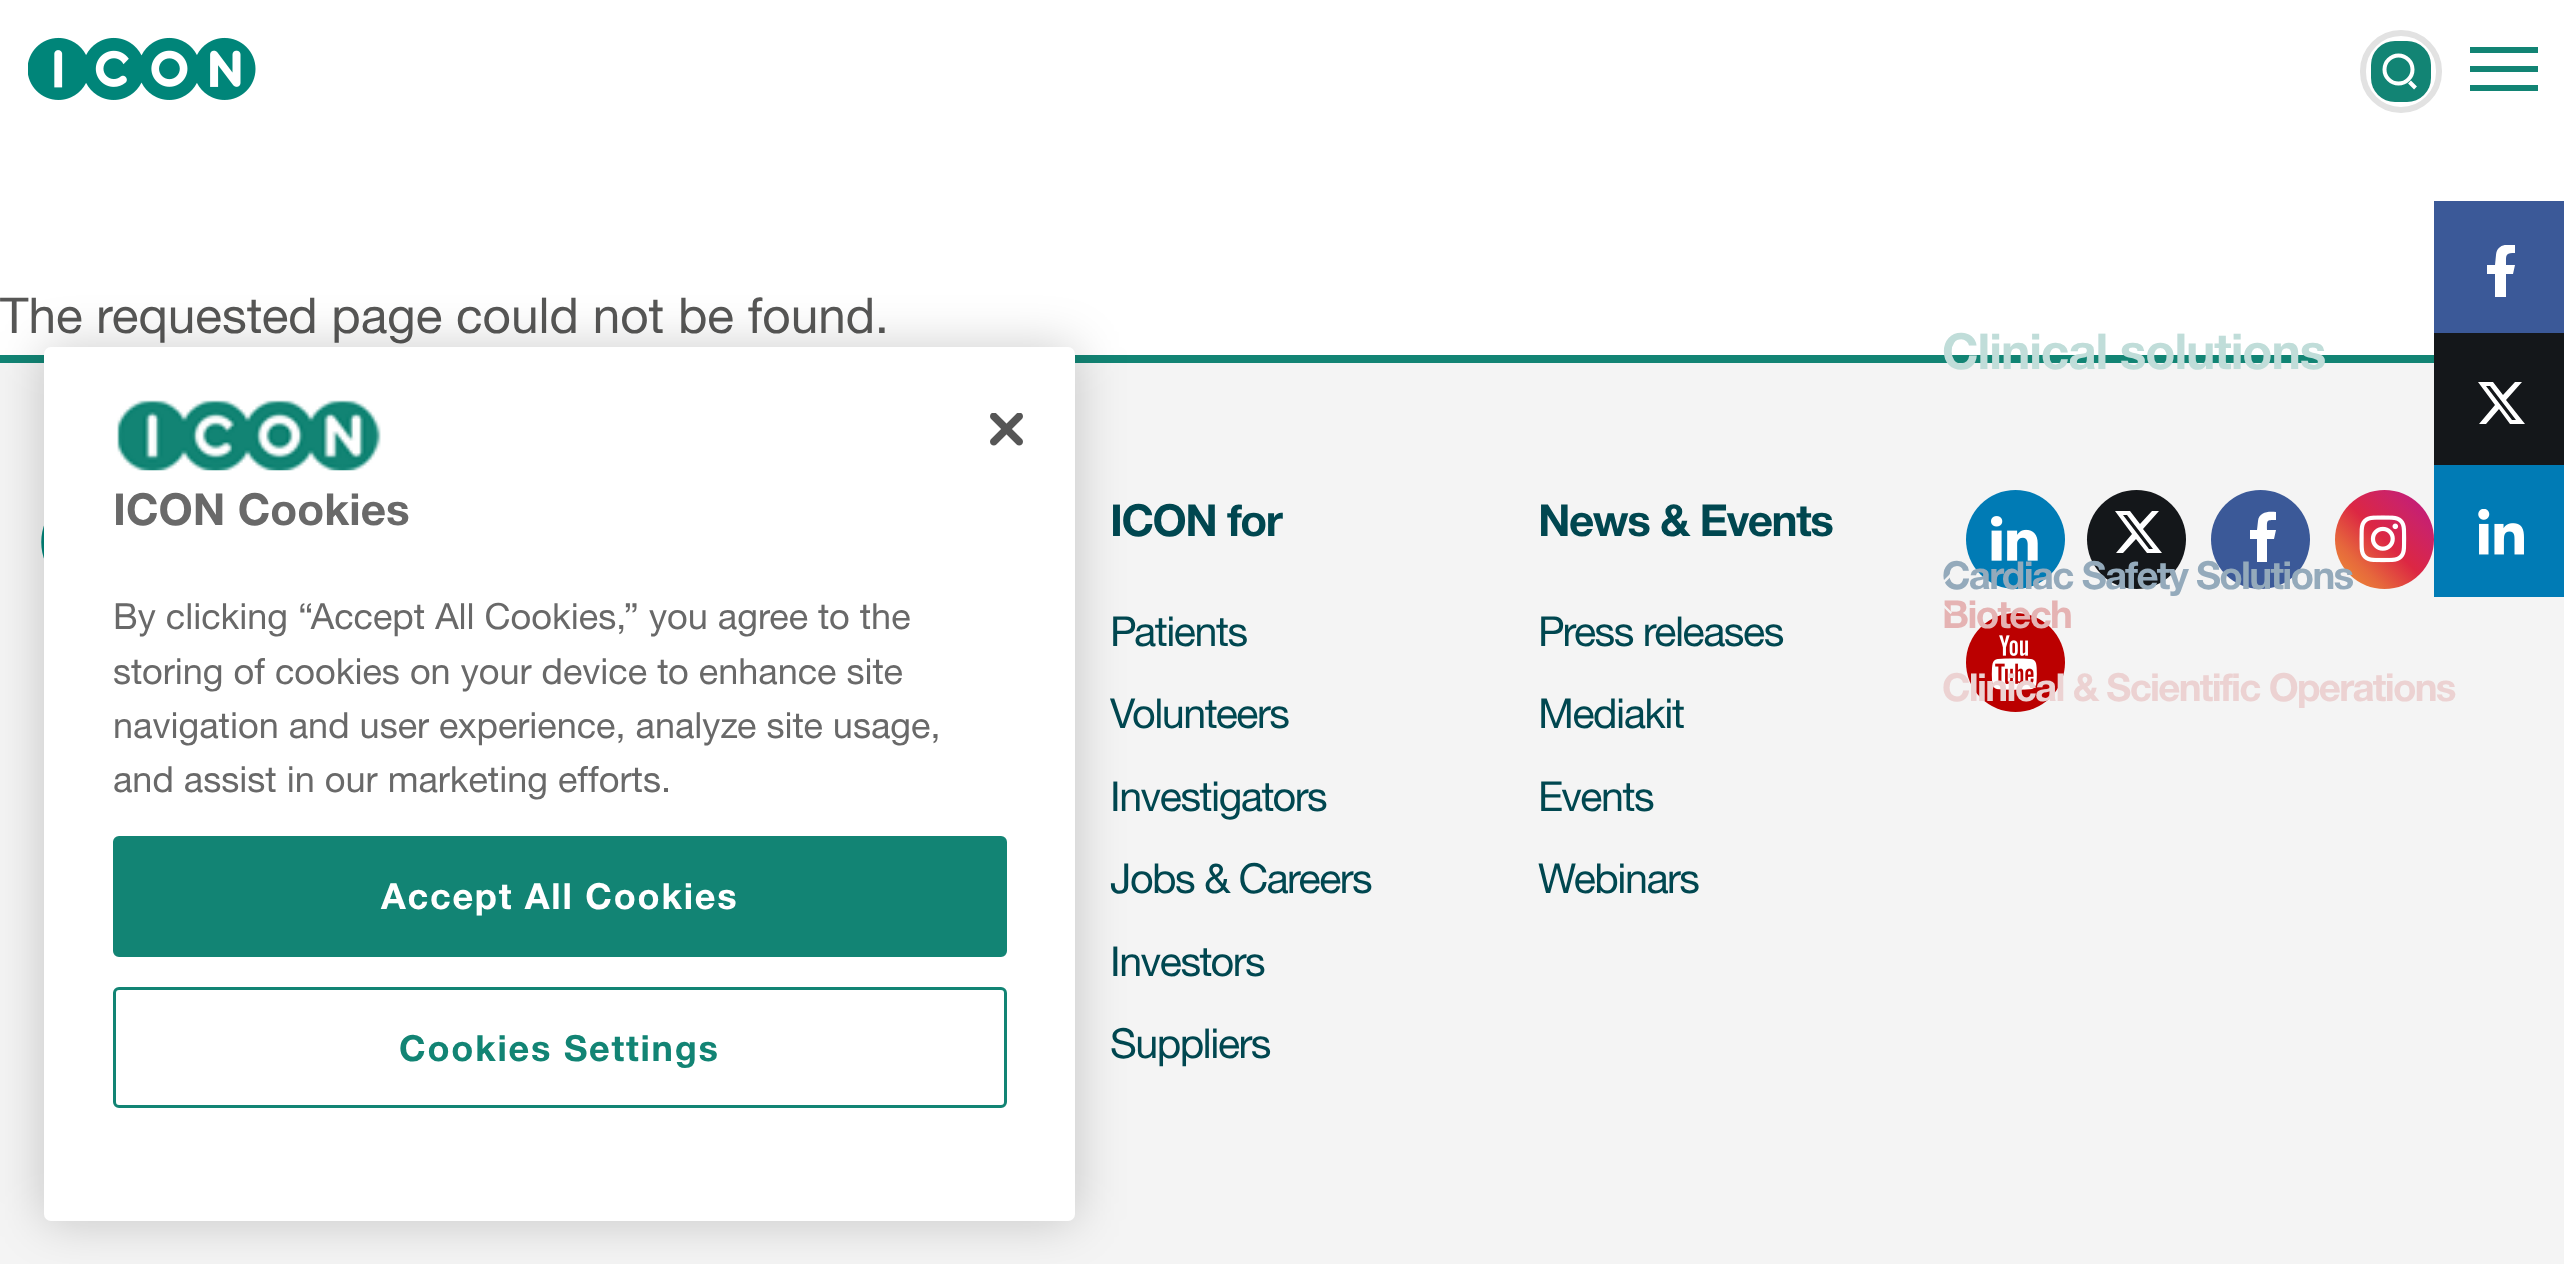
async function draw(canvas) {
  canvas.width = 2564
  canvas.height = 1264
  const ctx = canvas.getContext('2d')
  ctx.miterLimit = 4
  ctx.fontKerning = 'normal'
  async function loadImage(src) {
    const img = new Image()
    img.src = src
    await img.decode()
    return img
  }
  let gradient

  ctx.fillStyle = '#fff'
  ctx.fillRect(0, 0, 2564, 1264)
  ctx.font = '49.5px Helvetica Neue'
  ctx.fillStyle = '#575756'
  ctx.fillText('The requested page could not be found.', 0, 333)
  ctx.fillStyle = '#f4f4f4'
  ctx.fillRect(0, 363, 2564, 901)
  ctx.fillStyle = '#128474'
  ctx.fillRect(0, 355, 2434, 8)
  ctx.drawImage(await loadImage('image0.png'), 41, 525, 3, 34)
  ctx.letterSpacing = '-1.5px'
  ctx.font = 'bold 44px Helvetica Neue'
  ctx.fillStyle = '#004750'
  ctx.fillText('ICON for', 1110, 536)
  ctx.font = '41.25px Helvetica Neue'
  ctx.fillText('Patients', 1110, 646)
  ctx.fillText('Volunteers', 1110, 728)
  ctx.fillText('Investigators', 1110, 811)
  ctx.fillText('Jobs & Careers', 1110, 893)
  ctx.fillText('Investors', 1110, 976)
  ctx.fillText('Suppliers', 1110, 1058)
  ctx.font = 'bold 44px Helvetica Neue'
  ctx.fillText('News & Events', 1538, 536)
  ctx.font = '41.25px Helvetica Neue'
  ctx.fillText('Press releases', 1538, 646)
  ctx.fillText('Mediakit', 1538, 728)
  ctx.fillText('Events', 1538, 811)
  ctx.fillText('Webinars', 1538, 893)
  ctx.fillStyle = '#007bb5'
  ctx.beginPath()
  ctx.arc(2015.5, 539.5, 49.5, 0, 2 * Math.PI)
  ctx.fill()
  ctx.drawImage(await loadImage('image1.png'), 1991, 516, 47, 45)
  ctx.fillStyle = '#14171a'
  ctx.beginPath()
  ctx.arc(2136.5, 539.5, 49.5, 0, 2 * Math.PI)
  ctx.fill()
  ctx.fillStyle = '#fff'
  ctx.beginPath()
  ctx.moveTo(2152, 511)
  ctx.lineTo(2159, 511)
  ctx.lineTo(2143, 529)
  ctx.lineTo(2162, 553)
  ctx.lineTo(2147, 553)
  ctx.lineTo(2136, 539)
  ctx.lineTo(2123, 553)
  ctx.lineTo(2116, 553)
  ctx.lineTo(2132, 534)
  ctx.lineTo(2115, 511)
  ctx.lineTo(2130, 511)
  ctx.lineTo(2140, 524)
  ctx.closePath()
  ctx.moveTo(2149, 549)
  ctx.lineTo(2153, 549)
  ctx.lineTo(2127, 515)
  ctx.lineTo(2123, 515)
  ctx.closePath()
  ctx.fill()
  ctx.fillStyle = '#3b5998'
  ctx.beginPath()
  ctx.arc(2260.5, 539.5, 49.5, 0, 2 * Math.PI)
  ctx.fill()
  ctx.fillStyle = '#fff'
  ctx.beginPath()
  ctx.moveTo(2276, 512)
  ctx.lineTo(2276, 520)
  ctx.bezierCurveTo(2266, 520, 2267, 520, 2267, 530)
  ctx.lineTo(2276, 530)
  ctx.lineTo(2274, 539)
  ctx.lineTo(2267, 539)
  ctx.lineTo(2267, 562)
  ctx.lineTo(2257, 562)
  ctx.lineTo(2257, 539)
  ctx.lineTo(2250, 539)
  ctx.lineTo(2250, 530)
  ctx.lineTo(2257, 530)
  ctx.lineTo(2258, 521)
  ctx.bezierCurveTo(2259, 512, 2268, 511, 2276, 512)
  ctx.closePath()
  ctx.fill()
  gradient = ctx.createLinearGradient(2335, 589, 2434, 490)
  gradient.addColorStop(0, '#f09433')
  gradient.addColorStop(0.25, '#e6683c')
  gradient.addColorStop(0.5, '#dc2743')
  gradient.addColorStop(0.75, '#cc2366')
  gradient.addColorStop(1, '#bc1888')
  ctx.fillStyle = gradient
  ctx.beginPath()
  ctx.arc(2384.5, 539.5, 49.5, 0, 2 * Math.PI)
  ctx.fill()
  ctx.drawImage(await loadImage('image2.png'), 2359, 515, 48, 48)
  ctx.fillStyle = '#b00'
  ctx.beginPath()
  ctx.arc(2015.5, 662.5, 49.5, 0, 2 * Math.PI)
  ctx.fill()
  ctx.drawImage(await loadImage('image3.png'), 1991, 635, 46, 55)
  ctx.drawImage(await loadImage('image4.png'), 28, 37, 228, 63)
  ctx.beginPath()
  ctx.roundRect(2363, 33, 76, 77, 38)
  ctx.strokeStyle = '#e2e2e2'
  ctx.lineWidth = 6
  ctx.stroke()
  ctx.fillStyle = '#128474'
  ctx.beginPath()
  ctx.roundRect(2371, 41, 60, 61, 24)
  ctx.fill()
  ctx.beginPath()
  ctx.arc(2398.5, 69.5, 14, 0, 2 * Math.PI)
  ctx.strokeStyle = '#fff'
  ctx.lineWidth = 4
  ctx.stroke()
  ctx.beginPath()
  ctx.moveTo(2415.5, 88)
  ctx.lineTo(2409.5, 82)
  ctx.lineJoin = 'round'
  ctx.stroke()
  ctx.fillRect(2470, 66, 68, 6)
  ctx.fillRect(2470, 47, 68, 6)
  ctx.fillRect(2470, 85, 68, 6)
  ctx.letterSpacing = '-1.7px'
  ctx.font = 'bold 38.5px Helvetica Neue'
  ctx.fillStyle = '#94aabb'
  ctx.fillText('Cardiac Safety Solutions', 1942, 589)
  ctx.fillStyle = '#e5b3b3'
  ctx.fillText('Biotech', 1942, 628)
  ctx.fillStyle = '#f4f4f4'
  ctx.beginPath()
  ctx.moveTo(1932.5, 593)
  ctx.lineTo(1952, 612.5)
  ctx.lineTo(1950.5, 614)
  ctx.lineTo(1931, 595)
  ctx.closePath()
  ctx.fill()
  ctx.beginPath()
  ctx.moveTo(1931, 593)
  ctx.lineTo(1950.5, 573.5)
  ctx.lineTo(1952, 575.5)
  ctx.lineTo(1932.5, 595)
  ctx.closePath()
  ctx.fill()
  ctx.letterSpacing = '-1.1px'
  ctx.font = 'bold 49.5px Helvetica Neue'
  ctx.fillStyle = '#c0ddd9'
  ctx.fillText('Clinical solutions', 1942, 369)
  ctx.letterSpacing = '-1.7px'
  ctx.font = 'bold 38.5px Helvetica Neue'
  ctx.fillStyle = '#ecd2d2'
  ctx.fillText('Clinical & Scientific Operations', 1942, 701)
  ctx.fillStyle = '#3b5998'
  ctx.fillRect(2434, 201, 130, 132)
  ctx.save()
  ctx.beginPath()
  ctx.rect(2475, 245, 52, 52)
  ctx.clip()
  ctx.fillStyle = '#fff'
  ctx.beginPath()
  ctx.moveTo(2513, 274)
  ctx.lineTo(2515, 265)
  ctx.lineTo(2506, 265)
  ctx.bezierCurveTo(2506, 255, 2505, 253, 2515, 253)
  ctx.lineTo(2515, 245)
  ctx.bezierCurveTo(2507, 244, 2497, 244, 2496, 255)
  ctx.lineTo(2495, 265)
  ctx.lineTo(2487, 265)
  ctx.lineTo(2487, 274)
  ctx.lineTo(2495, 274)
  ctx.lineTo(2495, 297)
  ctx.lineTo(2506, 297)
  ctx.lineTo(2506, 274)
  ctx.closePath()
  ctx.fill()
  ctx.restore()
  ctx.fillStyle = '#14171a'
  ctx.fillRect(2434, 333, 130, 132)
  ctx.fillStyle = '#fff'
  ctx.beginPath()
  ctx.moveTo(2515, 382)
  ctx.lineTo(2522, 382)
  ctx.lineTo(2506, 400)
  ctx.lineTo(2525, 424)
  ctx.lineTo(2510, 424)
  ctx.lineTo(2499, 409)
  ctx.lineTo(2486, 424)
  ctx.lineTo(2479, 424)
  ctx.lineTo(2495, 405)
  ctx.lineTo(2478, 382)
  ctx.lineTo(2493, 382)
  ctx.lineTo(2503, 395)
  ctx.closePath()
  ctx.moveTo(2512, 420)
  ctx.lineTo(2516, 420)
  ctx.lineTo(2490, 386)
  ctx.lineTo(2486, 386)
  ctx.closePath()
  ctx.fill()
  ctx.fillStyle = '#007bb5'
  ctx.fillRect(2434, 465, 130, 132)
  ctx.drawImage(await loadImage('image5.png'), 2478, 509, 46, 46)
  ctx.fillStyle = '#00000033'
  ctx.filter = 'blur(25px)'
  ctx.beginPath()
  ctx.roundRect(44, 347, 1031, 874, 7)
  ctx.fill()
  ctx.filter = 'none'
  ctx.fillStyle = '#fff'
  ctx.beginPath()
  ctx.roundRect(44, 347, 1031, 874, 7)
  ctx.fill()
  ctx.drawImage(await loadImage('image6.png'), 990, 413, 33, 33)
  ctx.drawImage(await loadImage('image7.png'), 117, 400, 264, 71)
  ctx.letterSpacing = '0px'
  ctx.font = 'bold 44px Helvetica Neue'
  ctx.fillStyle = '#696969'
  ctx.fillText('ICON Cookies', 113, 525)
  ctx.font = '36.1px Helvetica Neue'
  ctx.fillText('By clicking “Accept All Cookies,” you agree to the', 113, 629)
  ctx.fillText('storing of cookies on your device to enhance site', 113, 684)
  ctx.fillText('navigation and user experience, analyze site usage,', 113, 738)
  ctx.fillText('and assist in our marketing efforts.', 113, 792)
  ctx.fillStyle = '#128474'
  ctx.beginPath()
  ctx.roundRect(114.5, 837.5, 891, 118, 4.5)
  ctx.fill()
  ctx.strokeStyle = '#128474'
  ctx.lineWidth = 3
  ctx.lineJoin = 'miter'
  ctx.stroke()
  ctx.letterSpacing = '1.75px'
  ctx.font = 'bold 36.1px Helvetica Neue'
  ctx.fillStyle = '#fff'
  ctx.fillText('Accept All Cookies', 381, 909)
  ctx.beginPath()
  ctx.roundRect(114.5, 988.5, 891, 118, 4.5)
  ctx.stroke()
  ctx.fillStyle = '#128474'
  ctx.fillText('Cookies Settings', 399, 1061)
}

draw(document.querySelector('canvas'))
